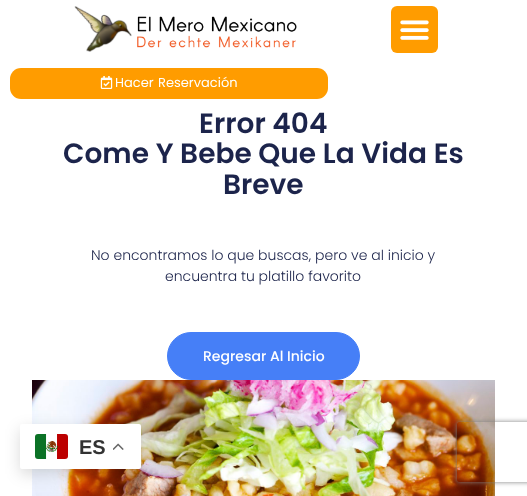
async function draw(canvas) {
  canvas.width = 527
  canvas.height = 496
  const ctx = canvas.getContext('2d')
  ctx.miterLimit = 4
  ctx.fontKerning = 'normal'
  async function loadImage(src) {
    const img = new Image()
    img.src = src
    await img.decode()
    return img
  }

  ctx.fillStyle = '#fff'
  ctx.fillRect(0, 0, 527, 496)
  ctx.drawImage(await loadImage('image0.png'), 74, 6, 223, 46)
  ctx.fillStyle = '#ff9c00'
  ctx.beginPath()
  ctx.roundRect(391, 6, 47, 47, 6)
  ctx.fill()
  ctx.drawImage(await loadImage('image1.png'), 400, 20, 29, 20)
  ctx.beginPath()
  ctx.roundRect(10, 68, 318, 31, 11)
  ctx.fill()
  ctx.drawImage(await loadImage('image2.png'), 100, 76, 13, 13)
  ctx.wordSpacing = '1px'
  ctx.font = '13px Poppins'
  ctx.fillStyle = '#fff'
  ctx.fillText('Hacer Reservación', 115, 87)
  ctx.wordSpacing = '0px'
  ctx.font = '600 28px Poppins'
  ctx.fillStyle = '#1c244b'
  ctx.fillText('Error 404', 199, 133)
  ctx.fillText('Come Y Bebe Que La Vida Es', 63, 163)
  ctx.fillText('Breve', 223, 194)
  ctx.font = '300 14px Poppins'
  ctx.fillText('No encontramos lo que buscas, pero ve al inicio y', 91, 260)
  ctx.fillText('encuentra tu platillo favorito', 165, 281)
  ctx.fillStyle = '#467ff7'
  ctx.beginPath()
  ctx.roundRect(167.5, 332.5, 192, 47, 23.5)
  ctx.fill()
  ctx.strokeStyle = '#467ff7'
  ctx.stroke()
  ctx.font = '500 14px Poppins'
  ctx.fillStyle = '#fff'
  ctx.fillText('Regresar Al Inicio', 203, 361)
  ctx.drawImage(await loadImage('image3.png'), 32, 380, 463, 116)
  ctx.fillStyle = '#00000026'
  ctx.filter = 'blur(7.5px)'
  ctx.beginPath()
  ctx.roundRect(20, 429, 121, 45, 2)
  ctx.fill()
  ctx.filter = 'none'
  ctx.fillStyle = '#fff'
  ctx.beginPath()
  ctx.roundRect(20, 424, 121, 45, 2)
  ctx.fill()
  ctx.drawImage(await loadImage('image4.png'), 35, 434, 33, 25)
  ctx.font = 'bold 20px Liberation Sans'
  ctx.fillStyle = '#333'
  ctx.fillText('ES', 79, 454)
  ctx.drawImage(await loadImage('image5.png'), 113, 443, 11, 7)
  ctx.save()
  ctx.beginPath()
  ctx.moveTo(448, 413)
  ctx.lineTo(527, 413)
  ctx.lineTo(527, 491)
  ctx.lineTo(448, 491)
  ctx.closePath()
  ctx.moveTo(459, 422)
  ctx.lineTo(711, 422)
  ctx.bezierCurveTo(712, 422, 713, 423, 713, 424)
  ctx.lineTo(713, 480)
  ctx.bezierCurveTo(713, 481, 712, 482, 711, 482)
  ctx.lineTo(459, 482)
  ctx.bezierCurveTo(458, 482, 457, 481, 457, 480)
  ctx.lineTo(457, 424)
  ctx.bezierCurveTo(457, 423, 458, 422, 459, 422)
  ctx.closePath()
  ctx.clip('evenodd')
  ctx.fillStyle = '#808080'
  ctx.filter = 'blur(2.5px)'
  ctx.beginPath()
  ctx.roundRect(457, 422, 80, 60, 2)
  ctx.fill()
  ctx.filter = 'none'
  ctx.restore()
}

draw(document.querySelector('canvas'))
